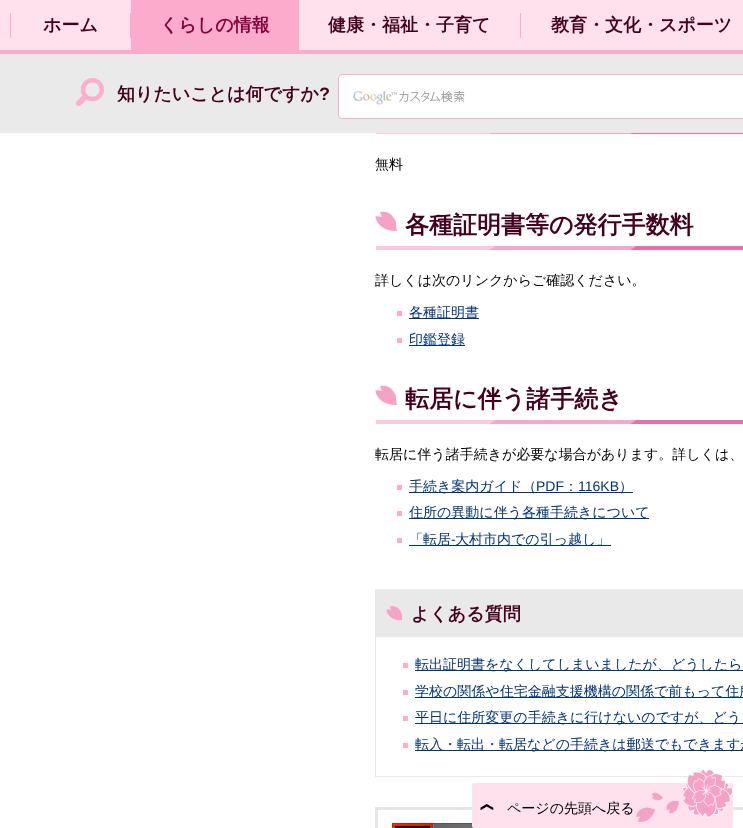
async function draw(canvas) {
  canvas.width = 743
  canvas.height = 828
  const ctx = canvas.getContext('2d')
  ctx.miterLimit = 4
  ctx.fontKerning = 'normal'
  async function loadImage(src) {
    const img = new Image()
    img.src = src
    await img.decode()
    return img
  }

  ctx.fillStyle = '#fff'
  ctx.fillRect(0, 0, 743, 828)
  ctx.fillStyle = '#ffe1ee'
  ctx.fillRect(0, 0, 743, 50)
  ctx.fillStyle = '#fdabcd'
  ctx.fillRect(10, 13, 1, 25)
  ctx.font = 'bold 18px WenQuanYi Zen Hei'
  ctx.fillStyle = '#44001e'
  ctx.fillText('ホーム', 43, 31)
  ctx.fillStyle = '#fdabcd'
  ctx.fillRect(130, 13, 1, 25)
  ctx.fillRect(131, 0, 168, 50)
  ctx.fillStyle = '#83033c'
  ctx.fillText('くらしの情報', 160, 31)
  ctx.fillStyle = '#44001e'
  ctx.fillText('健康・福祉・子育て', 328, 31)
  ctx.fillStyle = '#fdabcd'
  ctx.fillRect(520, 13, 1, 25)
  ctx.fillStyle = '#44001e'
  ctx.fillText('教育・文化・スポーツ', 551, 31)
  ctx.fillStyle = '#eaeaea'
  ctx.fillRect(0, 54, 743, 79)
  ctx.fillStyle = '#fdabcd'
  ctx.fillRect(0, 50, 743, 4)
  ctx.drawImage(await loadImage('image0.png'), 76, 78, 28, 28)
  ctx.fillStyle = '#44001e'
  ctx.fillText('知りたいことは何ですか', 117, 100)
  ctx.font = 'bold 18px Liberation Sans'
  ctx.fillText('?', 319, 100)
  ctx.fillStyle = '#fff'
  ctx.beginPath()
  ctx.roundRect(338, 74, 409, 45, 4)
  ctx.fill()
  ctx.drawImage(await loadImage('image1.png'), 353, 91, 112, 14)
  ctx.beginPath()
  ctx.roundRect(338.5, 74.5, 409, 44, 3.5)
  ctx.strokeStyle = '#fdabcd'
  ctx.stroke()
  ctx.drawImage(await loadImage('image2.png'), 376, 133, 367, 1)
  ctx.font = '500 14px WenQuanYi Zen Hei'
  ctx.fillStyle = '#000'
  ctx.fillText('無料', 375, 169)
  ctx.drawImage(await loadImage('image3.png'), 375, 211, 368, 39)
  ctx.font = 'bold 24px WenQuanYi Zen Hei'
  ctx.fillStyle = '#44001e'
  ctx.fillText('各種証明書等の発行手数料', 405, 233)
  ctx.font = '500 14px WenQuanYi Zen Hei'
  ctx.fillStyle = '#000'
  ctx.fillText('詳しくは次のリンクからご確認ください。', 375, 285)
  ctx.fillStyle = '#fdabcd'
  ctx.fillRect(397, 311, 5, 5)
  ctx.fillStyle = '#037'
  ctx.fillRect(409, 318, 70, 1)
  ctx.fillText('各種証明書', 409, 317)
  ctx.fillStyle = '#fdabcd'
  ctx.fillRect(397, 338, 5, 5)
  ctx.fillStyle = '#037'
  ctx.fillRect(409, 345, 56, 1)
  ctx.fillText('印鑑登録', 409, 344)
  ctx.drawImage(await loadImage('image3.png'), 375, 385, 368, 39)
  ctx.font = 'bold 24px WenQuanYi Zen Hei'
  ctx.fillStyle = '#44001e'
  ctx.fillText('転居に伴う諸手続き', 405, 407)
  ctx.font = '500 14px WenQuanYi Zen Hei'
  ctx.fillStyle = '#000'
  ctx.fillText('転居に伴う諸手続きが必要な場合があります。詳しくは、', 375, 459)
  ctx.fillStyle = '#fdabcd'
  ctx.fillRect(397, 485, 5, 5)
  ctx.fillStyle = '#037'
  ctx.fillRect(409, 492, 224, 1)
  ctx.fillText('手続き案内ガイド（', 409, 491)
  ctx.font = '14px Liberation Sans'
  ctx.fillText('PDF', 536, 491)
  ctx.font = '500 14px WenQuanYi Zen Hei'
  ctx.fillText('：', 564, 491)
  ctx.font = '14px Liberation Sans'
  ctx.fillText('116KB', 578, 491)
  ctx.font = '500 14px WenQuanYi Zen Hei'
  ctx.fillText('）', 619, 491)
  ctx.fillStyle = '#fdabcd'
  ctx.fillRect(397, 511, 5, 5)
  ctx.fillStyle = '#037'
  ctx.fillRect(409, 518, 240, 1)
  ctx.fillText('住所の異動に伴う各種手続きについて', 409, 517)
  ctx.fillStyle = '#fdabcd'
  ctx.fillRect(397, 538, 5, 5)
  ctx.fillStyle = '#037'
  ctx.fillRect(409, 545, 202, 1)
  ctx.fillText('「転居', 409, 544)
  ctx.font = '14px Liberation Sans'
  ctx.fillText('-', 451, 544)
  ctx.font = '500 14px WenQuanYi Zen Hei'
  ctx.fillText('大村市内での引っ越し」', 455, 544)
  ctx.strokeStyle = '#e9e9e9'
  ctx.strokeRect(375.5, 589.5, 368, 187)
  ctx.fillStyle = '#e9e9e9'
  ctx.fillRect(376, 590, 367, 47)
  ctx.drawImage(await loadImage('image4.png'), 386, 606, 16, 15)
  ctx.font = 'bold 18px WenQuanYi Zen Hei'
  ctx.fillStyle = '#44001e'
  ctx.fillText('よくある質問', 411, 620)
  ctx.fillStyle = '#fdabcd'
  ctx.fillRect(403, 663, 5, 5)
  ctx.fillStyle = '#037'
  ctx.fillRect(415, 670, 328, 1)
  ctx.font = '500 14px WenQuanYi Zen Hei'
  ctx.fillText('転出証明書をなくしてしまいましたが、どうしたら', 415, 669)
  ctx.fillStyle = '#fdabcd'
  ctx.fillRect(403, 690, 5, 5)
  ctx.fillStyle = '#037'
  ctx.fillRect(415, 697, 328, 1)
  ctx.fillText('学校の関係や住宅金融支援機構の関係で前もって住所', 415, 696)
  ctx.fillStyle = '#fdabcd'
  ctx.fillRect(403, 716, 5, 5)
  ctx.fillStyle = '#037'
  ctx.fillRect(415, 723, 328, 1)
  ctx.fillText('平日に住所変更の手続きに行けないのですが、どう', 415, 722)
  ctx.fillStyle = '#fdabcd'
  ctx.fillRect(403, 743, 5, 5)
  ctx.fillStyle = '#037'
  ctx.fillRect(415, 750, 328, 1)
  ctx.fillText('転入・転出・転居などの手続きは郵送でもできますか', 415, 749)
  ctx.strokeStyle = '#e6e6e6'
  ctx.lineWidth = 3
  ctx.strokeRect(376.5, 808.5, 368, 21)
  ctx.drawImage(await loadImage('image5.png'), 392, 823, 82, 5)
  ctx.fillStyle = '#ffe1ee'
  ctx.beginPath()
  ctx.roundRect(472, 783, 261, 45, 2)
  ctx.fill()
  ctx.drawImage(await loadImage('image6.png'), 480, 804, 14, 6)
  ctx.fillStyle = '#000'
  ctx.fillText('ページの先頭へ戻る', 507, 813)
  ctx.drawImage(await loadImage('image7.png'), 636, 769, 97, 53)
}

draw(document.querySelector('canvas'))
